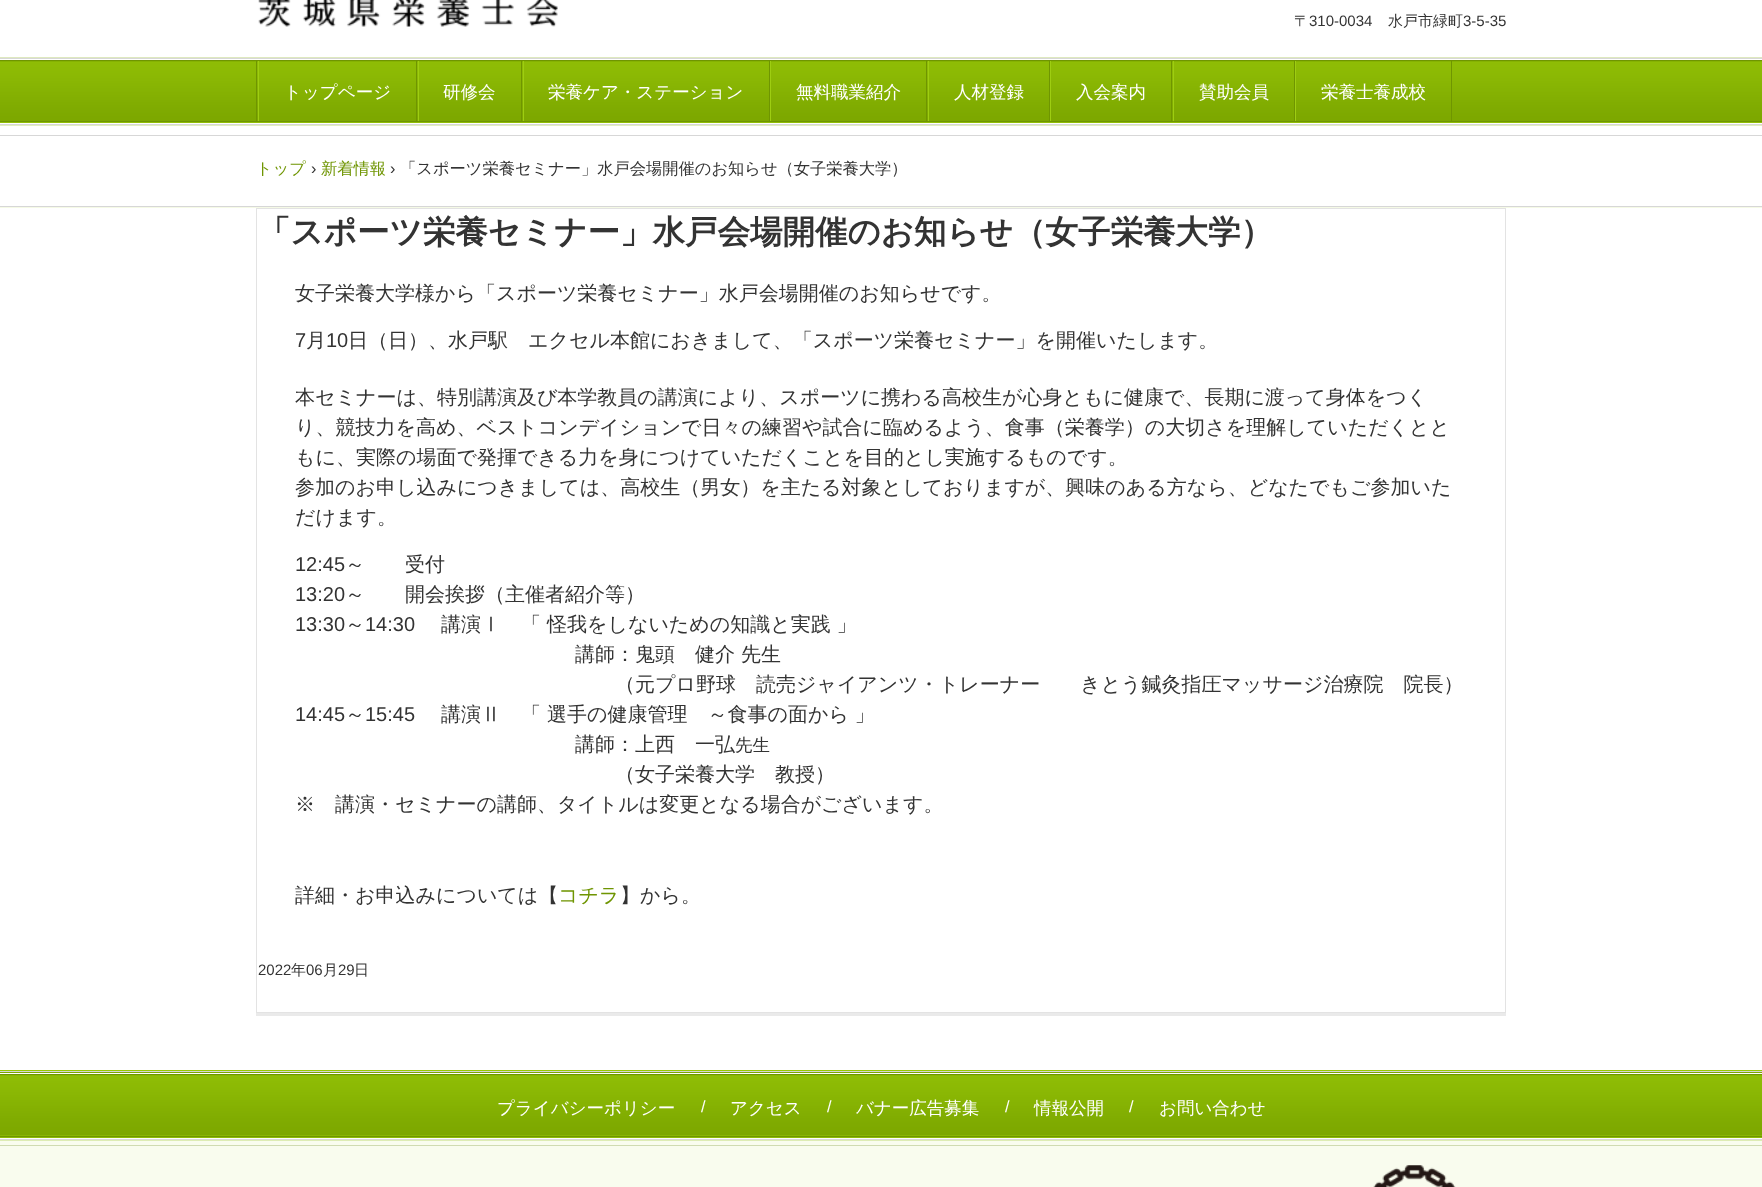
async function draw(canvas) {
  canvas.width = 1762
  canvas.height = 1187
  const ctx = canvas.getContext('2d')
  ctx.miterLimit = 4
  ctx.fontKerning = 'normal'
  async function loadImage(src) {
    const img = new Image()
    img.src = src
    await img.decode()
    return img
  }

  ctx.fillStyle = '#fff'
  ctx.fillRect(0, 0, 1762, 1187)
  ctx.drawImage(await loadImage('image0.png'), 258, 0, 300, 27)
  ctx.font = '500 15px WenQuanYi Zen Hei'
  ctx.fillStyle = '#333'
  ctx.fillText('〒', 1294, 26)
  ctx.font = '15px Liberation Sans'
  ctx.fillText('310-0034', 1309, 26)
  ctx.font = '500 15px WenQuanYi Zen Hei'
  ctx.fillText('水戸市緑町', 1388, 26)
  ctx.font = '15px Liberation Sans'
  ctx.fillText('3-5-35', 1463, 26)
  ctx.drawImage(await loadImage('image1.png'), 0, 57, 1762, 69)
  ctx.fillStyle = '#d7d7d7'
  ctx.fillRect(0, 58, 1762, 1)
  ctx.fillRect(0, 124, 1762, 1)
  ctx.fillStyle = '#fff'
  ctx.fillRect(0, 59, 1762, 1)
  ctx.fillStyle = '#6f9501'
  ctx.fillRect(0, 60, 1762, 1)
  ctx.fillRect(256, 61, 1, 60)
  ctx.fillRect(416, 61, 1, 60)
  ctx.fillStyle = '#9ecd12'
  ctx.fillRect(258, 61, 1, 60)
  ctx.font = '500 17.5px WenQuanYi Zen Hei'
  ctx.fillStyle = '#fff'
  ctx.fillText('トップページ', 284, 98)
  ctx.fillStyle = '#6f9501'
  ctx.fillRect(521, 61, 1, 60)
  ctx.fillStyle = '#9ecd12'
  ctx.fillRect(418, 61, 1, 60)
  ctx.fillStyle = '#fff'
  ctx.fillText('研修会', 443, 98)
  ctx.fillStyle = '#6f9501'
  ctx.fillRect(769, 61, 1, 60)
  ctx.fillStyle = '#9ecd12'
  ctx.fillRect(523, 61, 1, 60)
  ctx.fillStyle = '#fff'
  ctx.fillText('栄養ケア・ステーション', 548, 98)
  ctx.fillStyle = '#6f9501'
  ctx.fillRect(926, 61, 1, 60)
  ctx.fillStyle = '#9ecd12'
  ctx.fillRect(770, 61, 1, 60)
  ctx.fillStyle = '#fff'
  ctx.fillText('無料職業紹介', 796, 98)
  ctx.fillStyle = '#6f9501'
  ctx.fillRect(1049, 61, 1, 60)
  ctx.fillStyle = '#9ecd12'
  ctx.fillRect(928, 61, 1, 60)
  ctx.fillStyle = '#fff'
  ctx.fillText('人材登録', 954, 98)
  ctx.fillStyle = '#6f9501'
  ctx.fillRect(1171, 61, 1, 60)
  ctx.fillStyle = '#9ecd12'
  ctx.fillRect(1050, 61, 1, 60)
  ctx.fillStyle = '#fff'
  ctx.fillText('入会案内', 1076, 98)
  ctx.fillStyle = '#6f9501'
  ctx.fillRect(1294, 61, 1, 60)
  ctx.fillStyle = '#9ecd12'
  ctx.fillRect(1173, 61, 1, 60)
  ctx.fillStyle = '#fff'
  ctx.fillText('賛助会員', 1199, 98)
  ctx.fillStyle = '#6f9501'
  ctx.fillRect(1451, 61, 1, 60)
  ctx.fillStyle = '#9ecd12'
  ctx.fillRect(1295, 61, 1, 60)
  ctx.fillStyle = '#fff'
  ctx.fillText('栄養士養成校', 1321, 98)
  ctx.fillStyle = '#6f9501'
  ctx.fillRect(0, 121, 1762, 1)
  ctx.fillStyle = '#fff'
  ctx.fillRect(0, 123, 1762, 1)
  ctx.fillStyle = '#d7d7d7'
  ctx.fillRect(0, 135, 1762, 1)
  ctx.font = '500 16.25px WenQuanYi Zen Hei'
  ctx.fillStyle = '#6f9502'
  ctx.fillText('トップ', 256, 174)
  ctx.font = '16.25px Liberation Sans'
  ctx.fillStyle = '#333'
  ctx.fillText('›', 311, 174)
  ctx.font = '500 16.25px WenQuanYi Zen Hei'
  ctx.fillStyle = '#6f9502'
  ctx.fillText('新着情報', 321, 174)
  ctx.font = '16.25px Liberation Sans'
  ctx.fillStyle = '#333'
  ctx.fillText('›', 390, 174)
  ctx.font = '500 16.25px WenQuanYi Zen Hei'
  ctx.fillText('「スポーツ栄養セミナー」水戸会場開催のお知らせ（女子栄養大学）', 400, 174)
  ctx.fillStyle = '#f5fae6'
  ctx.fillRect(0, 207, 1762, 1)
  ctx.fillStyle = '#d7d7d7'
  ctx.fillRect(0, 206, 1762, 1)
  ctx.fillStyle = '#eaeaea'
  ctx.beginPath()
  ctx.moveTo(256, 211)
  ctx.lineTo(256, 1016)
  ctx.lineTo(1506, 1016)
  ctx.lineTo(1506, 1012)
  ctx.lineTo(256, 1012)
  ctx.closePath()
  ctx.fill()
  ctx.strokeStyle = '#e3e3e3'
  ctx.strokeRect(256.5, 208.5, 1249, 804)
  ctx.font = 'bold 32.5px WenQuanYi Zen Hei'
  ctx.fillStyle = '#333'
  ctx.fillText('「スポーツ栄養セミナー」水戸会場開催のお知らせ（女子栄養大学）', 258, 243)
  ctx.font = '500 20px WenQuanYi Zen Hei'
  ctx.fillText('女子栄養大学様から「スポーツ栄養セミナー」水戸会場開催のお知らせです。', 295, 300)
  ctx.font = '20px Liberation Sans'
  ctx.fillText('7', 295, 347)
  ctx.font = '500 20px WenQuanYi Zen Hei'
  ctx.fillText('月', 306, 347)
  ctx.font = '20px Liberation Sans'
  ctx.fillText('10', 326, 347)
  ctx.font = '500 20px WenQuanYi Zen Hei'
  ctx.fillText('日（日）、水戸駅　エクセル本館におきまして、「スポーツ栄養セミナー」を開催いたします。', 348, 347)
  ctx.fillText('本セミナーは、特別講演及び本学教員の講演により、スポーツに携わる高校生が心身ともに健康で、長期に渡って身体をつく', 295, 404)
  ctx.fillText('り、競技力を高め、ベストコンデイションで日々の練習や試合に臨めるよう、食事（栄養学）の大切さを理解していただくとと', 295, 434)
  ctx.fillText('もに、実際の場面で発揮できる力を身につけていただくことを目的とし実施するものです。', 295, 464)
  ctx.fillText('参加のお申し込みにつきましては、高校生（男女）を主たる対象としておりますが、興味のある方なら、どなたでもご参加いた', 295, 494)
  ctx.fillText('だけます。', 295, 524)
  ctx.font = '20px Liberation Sans'
  ctx.fillText('12:45', 295, 571)
  ctx.font = '500 20px WenQuanYi Zen Hei'
  ctx.fillText('～　　受付', 345, 571)
  ctx.font = '20px Liberation Sans'
  ctx.fillText('13:20', 295, 601)
  ctx.font = '500 20px WenQuanYi Zen Hei'
  ctx.fillText('～　　開会挨拶（主催者紹介等）', 345, 601)
  ctx.font = '20px Liberation Sans'
  ctx.fillText('13:30', 295, 631)
  ctx.font = '500 20px WenQuanYi Zen Hei'
  ctx.fillText('～', 345, 631)
  ctx.font = '20px Liberation Sans'
  ctx.fillText('14:30', 365, 631)
  ctx.font = '500 20px WenQuanYi Zen Hei'
  ctx.fillText('講演Ⅰ　「 怪我をしないための知識と実践 」', 441, 631)
  ctx.fillText('講師：鬼頭　健介 先生', 575, 661)
  ctx.fillText('（元プロ野球　読売ジャイアンツ・トレーナー　　きとう鍼灸指圧マッサージ治療院　院長）', 615, 691)
  ctx.font = '20px Liberation Sans'
  ctx.fillText('14:45', 295, 721)
  ctx.font = '500 20px WenQuanYi Zen Hei'
  ctx.fillText('～', 345, 721)
  ctx.font = '20px Liberation Sans'
  ctx.fillText('15:45', 365, 721)
  ctx.font = '500 20px WenQuanYi Zen Hei'
  ctx.fillText('講演Ⅱ　「 選手の健康管理　～食事の面から 」', 441, 721)
  ctx.fillText('講師：上西　一弘', 575, 751)
  ctx.font = '500 17.5px WenQuanYi Zen Hei'
  ctx.fillText('先生', 735, 751)
  ctx.font = '500 20px WenQuanYi Zen Hei'
  ctx.fillText('（女子栄養大学　教授）', 615, 781)
  ctx.fillText('※　講演・セミナーの講師、タイトルは変更となる場合がございます。', 295, 811)
  ctx.fillText('詳細・お申込みについては【', 295, 902)
  ctx.fillStyle = '#6f9502'
  ctx.fillText('コチラ', 558, 902)
  ctx.fillStyle = '#333'
  ctx.fillText('】から。', 620, 902)
  ctx.font = '15px Liberation Sans'
  ctx.fillText('2022', 258, 975)
  ctx.font = '500 15px WenQuanYi Zen Hei'
  ctx.fillText('年', 291, 975)
  ctx.font = '15px Liberation Sans'
  ctx.fillText('06', 306, 975)
  ctx.font = '500 15px WenQuanYi Zen Hei'
  ctx.fillText('月', 323, 975)
  ctx.font = '15px Liberation Sans'
  ctx.fillText('29', 338, 975)
  ctx.font = '500 15px WenQuanYi Zen Hei'
  ctx.fillText('日', 354, 975)
  ctx.fillStyle = '#f9fcee'
  ctx.fillRect(0, 1140, 1762, 47)
  ctx.fillStyle = '#97ca00'
  ctx.fillRect(0, 1070, 1762, 1)
  ctx.drawImage(await loadImage('image2.png'), 0, 1072, 1762, 69)
  ctx.fillStyle = '#d7d7d7'
  ctx.fillRect(0, 1071, 1762, 1)
  ctx.fillRect(0, 1139, 1762, 1)
  ctx.fillStyle = '#fff'
  ctx.fillRect(0, 1073, 1762, 1)
  ctx.fillStyle = '#6f9501'
  ctx.fillRect(0, 1074, 1762, 1)
  ctx.font = '500 17.5px WenQuanYi Zen Hei'
  ctx.fillStyle = '#fff'
  ctx.fillText('プライバシーポリシー', 497, 1114)
  ctx.font = '16.25px Liberation Sans'
  ctx.fillText('/', 701, 1112)
  ctx.font = '500 17.5px WenQuanYi Zen Hei'
  ctx.fillText('アクセス', 730, 1114)
  ctx.font = '16.25px Liberation Sans'
  ctx.fillText('/', 827, 1112)
  ctx.font = '500 17.5px WenQuanYi Zen Hei'
  ctx.fillText('バナー広告募集', 856, 1114)
  ctx.font = '16.25px Liberation Sans'
  ctx.fillText('/', 1005, 1112)
  ctx.font = '500 17.5px WenQuanYi Zen Hei'
  ctx.fillText('情報公開', 1034, 1114)
  ctx.font = '16.25px Liberation Sans'
  ctx.fillText('/', 1129, 1112)
  ctx.font = '500 17.5px WenQuanYi Zen Hei'
  ctx.fillText('お問い合わせ', 1159, 1114)
  ctx.fillStyle = '#6f9501'
  ctx.fillRect(0, 1136, 1762, 1)
  ctx.fillStyle = '#fff'
  ctx.fillRect(0, 1138, 1762, 1)
  ctx.fillStyle = '#d0dbb1'
  ctx.fillRect(0, 1145, 1762, 1)
  ctx.drawImage(await loadImage('image3.png'), 1373, 1165, 83, 22)
}

draw(document.querySelector('canvas'))
